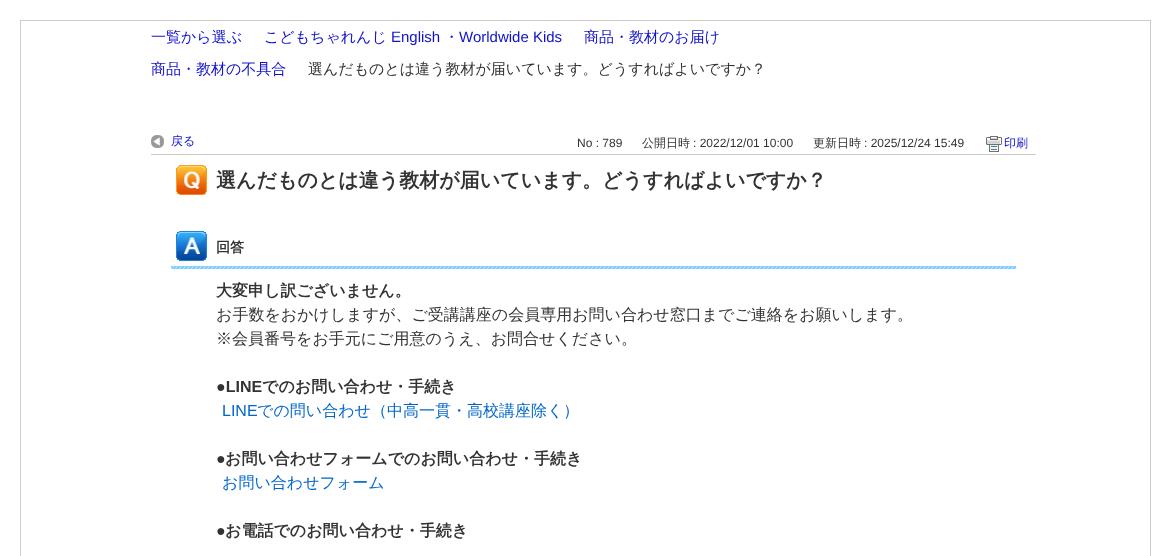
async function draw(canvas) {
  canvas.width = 1171
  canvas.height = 556
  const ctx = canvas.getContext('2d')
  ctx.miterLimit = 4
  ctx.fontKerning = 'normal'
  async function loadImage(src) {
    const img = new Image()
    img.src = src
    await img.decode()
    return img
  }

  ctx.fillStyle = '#fff'
  ctx.fillRect(0, 0, 1171, 556)
  ctx.strokeStyle = '#ccc'
  ctx.strokeRect(20.5, 20.5, 1130, 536)
  ctx.font = '500 15px WenQuanYi Zen Hei'
  ctx.fillStyle = '#11c'
  ctx.fillText('一覧から選ぶ', 151, 42)
  ctx.fillText('こどもちゃれんじ', 264, 42)
  ctx.font = '15px Liberation Sans'
  ctx.fillText('English', 391, 42)
  ctx.font = '500 15px WenQuanYi Zen Hei'
  ctx.fillText('・', 444, 42)
  ctx.font = '15px Liberation Sans'
  ctx.fillText('Worldwide Kids', 459, 42)
  ctx.font = '500 15px WenQuanYi Zen Hei'
  ctx.fillText('商品・教材のお届け', 584, 42)
  ctx.fillText('商品・教材の不具合', 151, 74)
  ctx.fillStyle = '#333'
  ctx.fillText('選んだものとは違う教材が届いています。どうすればよいですか？', 308, 74)
  ctx.fillStyle = '#ccc'
  ctx.fillRect(151, 154, 885, 1)
  ctx.drawImage(await loadImage('image0.png'), 151, 135, 13, 13)
  ctx.font = '500 12px WenQuanYi Zen Hei'
  ctx.fillStyle = '#11c'
  ctx.fillText('戻る', 171, 145)
  ctx.font = '12px Liberation Sans'
  ctx.fillStyle = '#333'
  ctx.fillText('No : 789', 577, 147)
  ctx.font = '500 12px WenQuanYi Zen Hei'
  ctx.fillText('公開日時', 642, 147)
  ctx.font = '12px Liberation Sans'
  ctx.fillText(': 2022/12/01 10:00', 693, 147)
  ctx.font = '500 12px WenQuanYi Zen Hei'
  ctx.fillText('更新日時', 813, 147)
  ctx.font = '12px Liberation Sans'
  ctx.fillText(': 2025/12/24 15:49', 864, 147)
  ctx.drawImage(await loadImage('image1.png'), 986, 136, 16, 16)
  ctx.font = '500 12px WenQuanYi Zen Hei'
  ctx.fillStyle = '#11c'
  ctx.fillText('印刷', 1004, 147)
  ctx.drawImage(await loadImage('image2.png'), 176, 165, 31, 30)
  ctx.font = 'bold 20px WenQuanYi Zen Hei'
  ctx.fillStyle = '#333'
  ctx.fillText('選んだものとは違う教材が届いています。どうすればよいですか？', 216, 187)
  ctx.drawImage(await loadImage('image3.png'), 171, 266, 845, 3)
  ctx.drawImage(await loadImage('image4.png'), 176, 231, 31, 30)
  ctx.font = 'bold 14px WenQuanYi Zen Hei'
  ctx.fillText('回答', 216, 252)
  ctx.font = 'bold 16px WenQuanYi Zen Hei'
  ctx.fillText('大変申し訳ございません。', 216, 296)
  ctx.font = '500 16px WenQuanYi Zen Hei'
  ctx.fillText('お手数をおかけしますが、ご受講講座の会員専用お問い合わせ窓口までご連絡をお願いします。', 216, 320)
  ctx.fillText('※会員番号をお手元にご用意のうえ、お問合せください。', 216, 344)
  ctx.font = 'bold 16px Liberation Sans'
  ctx.fillText('●LINE', 216, 392)
  ctx.font = 'bold 16px WenQuanYi Zen Hei'
  ctx.fillText('でのお問い合わせ・手続き', 262, 392)
  ctx.font = '16px Liberation Sans'
  ctx.fillStyle = '#06c'
  ctx.fillText('LINE', 222, 416)
  ctx.font = '500 16px WenQuanYi Zen Hei'
  ctx.fillText('での問い合わせ（中高一貫・高校講座除く）', 257, 416)
  ctx.font = 'bold 16px Liberation Sans'
  ctx.fillStyle = '#333'
  ctx.fillText('●', 216, 464)
  ctx.font = 'bold 16px WenQuanYi Zen Hei'
  ctx.fillText('お問い合わせフォームでのお問い合わせ・手続き', 225, 464)
  ctx.font = '500 16px WenQuanYi Zen Hei'
  ctx.fillStyle = '#06c'
  ctx.fillText('お問い合わせフォーム', 222, 488)
  ctx.font = 'bold 16px Liberation Sans'
  ctx.fillStyle = '#333'
  ctx.fillText('●', 216, 536)
  ctx.font = 'bold 16px WenQuanYi Zen Hei'
  ctx.fillText('お電話でのお問い合わせ・手続き', 225, 536)
}

draw(document.querySelector('canvas'))
